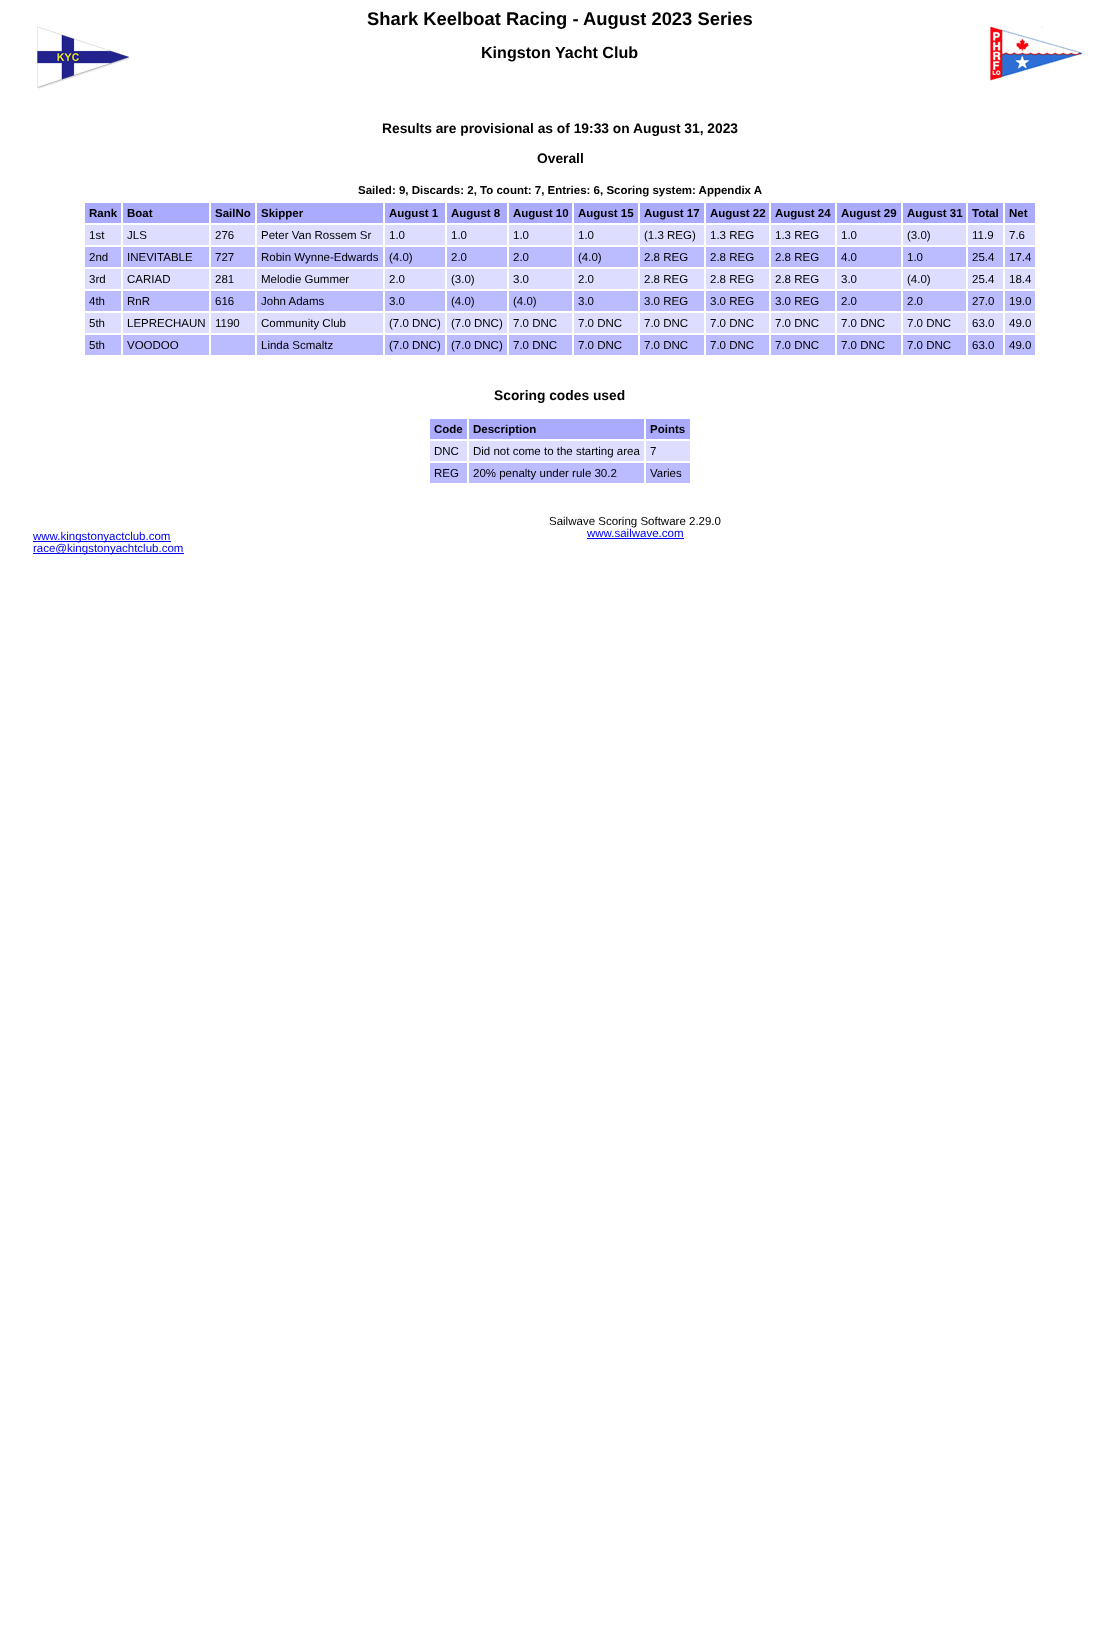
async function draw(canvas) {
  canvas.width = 1120
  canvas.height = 1648
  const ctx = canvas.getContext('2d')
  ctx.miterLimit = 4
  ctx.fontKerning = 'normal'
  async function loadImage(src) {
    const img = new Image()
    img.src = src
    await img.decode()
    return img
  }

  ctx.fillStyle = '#fff'
  ctx.fillRect(0, 0, 1120, 1648)
  ctx.font = 'bold 18.4px Liberation Sans'
  ctx.fillStyle = '#000'
  ctx.fillText('Shark Keelboat Racing - August 2023 Series', 367, 25)
  ctx.drawImage(await loadImage('image0.png'), 37, 26, 93, 63)
  ctx.font = 'bold 16.1px Liberation Sans'
  ctx.fillText('Kingston Yacht Club', 481, 58)
  ctx.drawImage(await loadImage('image1.png'), 988, 24, 95, 57)
  ctx.font = 'bold 13.8px Liberation Sans'
  ctx.fillText('Results are provisional as of 19:33 on August 31, 2023', 382, 133)
  ctx.fillText('Overall', 537, 163)
  ctx.font = 'bold 11.5px Liberation Sans'
  ctx.fillText('Sailed: 9, Discards: 2, To count: 7, Entries: 6, Scoring system: Appendix A', 358, 194)
  ctx.fillStyle = '#aaf'
  ctx.fillRect(85, 203, 36, 20)
  ctx.fillStyle = '#000'
  ctx.fillText('Rank', 89, 217)
  ctx.fillStyle = '#aaf'
  ctx.fillRect(123, 203, 86, 20)
  ctx.fillStyle = '#000'
  ctx.fillText('Boat', 127, 217)
  ctx.fillStyle = '#aaf'
  ctx.fillRect(211, 203, 44, 20)
  ctx.fillStyle = '#000'
  ctx.fillText('SailNo', 215, 217)
  ctx.fillStyle = '#aaf'
  ctx.fillRect(257, 203, 126, 20)
  ctx.fillStyle = '#000'
  ctx.fillText('Skipper', 261, 217)
  ctx.fillStyle = '#aaf'
  ctx.fillRect(385, 203, 60, 20)
  ctx.fillStyle = '#000'
  ctx.fillText('August 1', 389, 217)
  ctx.fillStyle = '#aaf'
  ctx.fillRect(447, 203, 60, 20)
  ctx.fillStyle = '#000'
  ctx.fillText('August 8', 451, 217)
  ctx.fillStyle = '#aaf'
  ctx.fillRect(509, 203, 63, 20)
  ctx.fillStyle = '#000'
  ctx.fillText('August 10', 513, 217)
  ctx.fillStyle = '#aaf'
  ctx.fillRect(574, 203, 64, 20)
  ctx.fillStyle = '#000'
  ctx.fillText('August 15', 578, 217)
  ctx.fillStyle = '#aaf'
  ctx.fillRect(640, 203, 64, 20)
  ctx.fillStyle = '#000'
  ctx.fillText('August 17', 644, 217)
  ctx.fillStyle = '#aaf'
  ctx.fillRect(706, 203, 63, 20)
  ctx.fillStyle = '#000'
  ctx.fillText('August 22', 710, 217)
  ctx.fillStyle = '#aaf'
  ctx.fillRect(771, 203, 64, 20)
  ctx.fillStyle = '#000'
  ctx.fillText('August 24', 775, 217)
  ctx.fillStyle = '#aaf'
  ctx.fillRect(837, 203, 64, 20)
  ctx.fillStyle = '#000'
  ctx.fillText('August 29', 841, 217)
  ctx.fillStyle = '#aaf'
  ctx.fillRect(903, 203, 63, 20)
  ctx.fillStyle = '#000'
  ctx.fillText('August 31', 907, 217)
  ctx.fillStyle = '#aaf'
  ctx.fillRect(968, 203, 35, 20)
  ctx.fillStyle = '#000'
  ctx.fillText('Total', 972, 217)
  ctx.fillStyle = '#aaf'
  ctx.fillRect(1005, 203, 30, 20)
  ctx.fillStyle = '#000'
  ctx.fillText('Net', 1009, 217)
  ctx.fillStyle = '#ddf'
  ctx.fillRect(85, 225, 950, 20)
  ctx.font = '11.5px Liberation Sans'
  ctx.fillStyle = '#000'
  ctx.fillText('1st', 89, 239)
  ctx.fillText('JLS', 127, 239)
  ctx.fillText('276', 215, 239)
  ctx.fillText('Peter Van Rossem Sr', 261, 239)
  ctx.fillText('1.0', 389, 239)
  ctx.fillText('1.0', 451, 239)
  ctx.fillText('1.0', 513, 239)
  ctx.fillText('1.0', 578, 239)
  ctx.fillText('(1.3 REG)', 644, 239)
  ctx.fillText('1.3 REG', 710, 239)
  ctx.fillText('1.3 REG', 775, 239)
  ctx.fillText('1.0', 841, 239)
  ctx.fillText('(3.0)', 907, 239)
  ctx.fillText('11.9', 972, 239)
  ctx.fillText('7.6', 1009, 239)
  ctx.fillStyle = '#bbf'
  ctx.fillRect(85, 247, 950, 20)
  ctx.fillStyle = '#000'
  ctx.fillText('2nd', 89, 261)
  ctx.fillText('INEVITABLE', 127, 261)
  ctx.fillText('727', 215, 261)
  ctx.fillText('Robin Wynne-Edwards', 261, 261)
  ctx.fillText('(4.0)', 389, 261)
  ctx.fillText('2.0', 451, 261)
  ctx.fillText('2.0', 513, 261)
  ctx.fillText('(4.0)', 578, 261)
  ctx.fillText('2.8 REG', 644, 261)
  ctx.fillText('2.8 REG', 710, 261)
  ctx.fillText('2.8 REG', 775, 261)
  ctx.fillText('4.0', 841, 261)
  ctx.fillText('1.0', 907, 261)
  ctx.fillText('25.4', 972, 261)
  ctx.fillText('17.4', 1009, 261)
  ctx.fillStyle = '#ddf'
  ctx.fillRect(85, 269, 950, 20)
  ctx.fillStyle = '#000'
  ctx.fillText('3rd', 89, 283)
  ctx.fillText('CARIAD', 127, 283)
  ctx.fillText('281', 215, 283)
  ctx.fillText('Melodie Gummer', 261, 283)
  ctx.fillText('2.0', 389, 283)
  ctx.fillText('(3.0)', 451, 283)
  ctx.fillText('3.0', 513, 283)
  ctx.fillText('2.0', 578, 283)
  ctx.fillText('2.8 REG', 644, 283)
  ctx.fillText('2.8 REG', 710, 283)
  ctx.fillText('2.8 REG', 775, 283)
  ctx.fillText('3.0', 841, 283)
  ctx.fillText('(4.0)', 907, 283)
  ctx.fillText('25.4', 972, 283)
  ctx.fillText('18.4', 1009, 283)
  ctx.fillStyle = '#bbf'
  ctx.fillRect(85, 291, 950, 20)
  ctx.fillStyle = '#000'
  ctx.fillText('4th', 89, 305)
  ctx.fillText('RnR', 127, 305)
  ctx.fillText('616', 215, 305)
  ctx.fillText('John Adams', 261, 305)
  ctx.fillText('3.0', 389, 305)
  ctx.fillText('(4.0)', 451, 305)
  ctx.fillText('(4.0)', 513, 305)
  ctx.fillText('3.0', 578, 305)
  ctx.fillText('3.0 REG', 644, 305)
  ctx.fillText('3.0 REG', 710, 305)
  ctx.fillText('3.0 REG', 775, 305)
  ctx.fillText('2.0', 841, 305)
  ctx.fillText('2.0', 907, 305)
  ctx.fillText('27.0', 972, 305)
  ctx.fillText('19.0', 1009, 305)
  ctx.fillStyle = '#ddf'
  ctx.fillRect(85, 313, 950, 20)
  ctx.fillStyle = '#000'
  ctx.fillText('5th', 89, 327)
  ctx.fillText('LEPRECHAUN', 127, 327)
  ctx.fillText('1190', 215, 327)
  ctx.fillText('Community Club', 261, 327)
  ctx.fillText('(7.0 DNC)', 389, 327)
  ctx.fillText('(7.0 DNC)', 451, 327)
  ctx.fillText('7.0 DNC', 513, 327)
  ctx.fillText('7.0 DNC', 578, 327)
  ctx.fillText('7.0 DNC', 644, 327)
  ctx.fillText('7.0 DNC', 710, 327)
  ctx.fillText('7.0 DNC', 775, 327)
  ctx.fillText('7.0 DNC', 841, 327)
  ctx.fillText('7.0 DNC', 907, 327)
  ctx.fillText('63.0', 972, 327)
  ctx.fillText('49.0', 1009, 327)
  ctx.fillStyle = '#bbf'
  ctx.fillRect(85, 335, 950, 20)
  ctx.fillStyle = '#000'
  ctx.fillText('5th', 89, 349)
  ctx.fillStyle = '#fff'
  ctx.fillRect(121, 223, 2, 134)
  ctx.fillStyle = '#000'
  ctx.fillText('VOODOO', 127, 349)
  ctx.fillStyle = '#fff'
  ctx.fillRect(209, 223, 2, 134)
  ctx.fillRect(255, 223, 2, 134)
  ctx.fillStyle = '#000'
  ctx.fillText('Linda Scmaltz', 261, 349)
  ctx.fillStyle = '#fff'
  ctx.fillRect(383, 223, 2, 134)
  ctx.fillStyle = '#000'
  ctx.fillText('(7.0 DNC)', 389, 349)
  ctx.fillStyle = '#fff'
  ctx.fillRect(445, 223, 2, 134)
  ctx.fillStyle = '#000'
  ctx.fillText('(7.0 DNC)', 451, 349)
  ctx.fillStyle = '#fff'
  ctx.fillRect(507, 223, 2, 134)
  ctx.fillStyle = '#000'
  ctx.fillText('7.0 DNC', 513, 349)
  ctx.fillStyle = '#fff'
  ctx.fillRect(572, 223, 2, 134)
  ctx.fillStyle = '#000'
  ctx.fillText('7.0 DNC', 578, 349)
  ctx.fillStyle = '#fff'
  ctx.fillRect(638, 223, 2, 134)
  ctx.fillStyle = '#000'
  ctx.fillText('7.0 DNC', 644, 349)
  ctx.fillStyle = '#fff'
  ctx.fillRect(704, 223, 2, 134)
  ctx.fillStyle = '#000'
  ctx.fillText('7.0 DNC', 710, 349)
  ctx.fillStyle = '#fff'
  ctx.fillRect(769, 223, 2, 134)
  ctx.fillStyle = '#000'
  ctx.fillText('7.0 DNC', 775, 349)
  ctx.fillStyle = '#fff'
  ctx.fillRect(835, 223, 2, 134)
  ctx.fillStyle = '#000'
  ctx.fillText('7.0 DNC', 841, 349)
  ctx.fillStyle = '#fff'
  ctx.fillRect(901, 223, 2, 134)
  ctx.fillStyle = '#000'
  ctx.fillText('7.0 DNC', 907, 349)
  ctx.fillStyle = '#fff'
  ctx.fillRect(966, 223, 2, 134)
  ctx.fillStyle = '#000'
  ctx.fillText('63.0', 972, 349)
  ctx.fillStyle = '#fff'
  ctx.fillRect(1003, 223, 2, 134)
  ctx.fillStyle = '#000'
  ctx.fillText('49.0', 1009, 349)
  ctx.font = 'bold 13.8px Liberation Sans'
  ctx.fillText('Scoring codes used', 494, 400)
  ctx.fillStyle = '#aaf'
  ctx.fillRect(430, 419, 37, 20)
  ctx.font = 'bold 11.5px Liberation Sans'
  ctx.fillStyle = '#000'
  ctx.fillText('Code', 434, 433)
  ctx.fillStyle = '#aaf'
  ctx.fillRect(469, 419, 175, 20)
  ctx.fillStyle = '#000'
  ctx.fillText('Description', 473, 433)
  ctx.fillStyle = '#aaf'
  ctx.fillRect(646, 419, 44, 20)
  ctx.fillStyle = '#000'
  ctx.fillText('Points', 650, 433)
  ctx.fillStyle = '#ddf'
  ctx.fillRect(430, 441, 260, 20)
  ctx.font = '11.5px Liberation Sans'
  ctx.fillStyle = '#000'
  ctx.fillText('DNC', 434, 455)
  ctx.fillText('Did not come to the starting area', 473, 455)
  ctx.fillText('7', 650, 455)
  ctx.fillStyle = '#bbf'
  ctx.fillRect(430, 463, 260, 20)
  ctx.fillStyle = '#000'
  ctx.fillText('REG', 434, 477)
  ctx.fillStyle = '#fff'
  ctx.fillRect(467, 439, 2, 46)
  ctx.fillStyle = '#000'
  ctx.fillText('20% penalty under rule 30.2', 473, 477)
  ctx.fillStyle = '#fff'
  ctx.fillRect(644, 439, 2, 46)
  ctx.fillStyle = '#000'
  ctx.fillText('Varies', 650, 477)
  ctx.fillText('Sailwave Scoring Software 2.29.0', 549, 525)
  ctx.fillStyle = '#00e'
  ctx.fillText('www.sailwave.com', 587, 537)
  ctx.fillRect(587, 538, 97, 1)
  ctx.fillRect(33, 541, 138, 1)
  ctx.fillText('www.kingstonyactclub.com', 33, 540)
  ctx.fillRect(33, 553, 151, 1)
  ctx.fillText('race@kingstonyachtclub.com', 33, 552)
}

draw(document.querySelector('canvas'))
